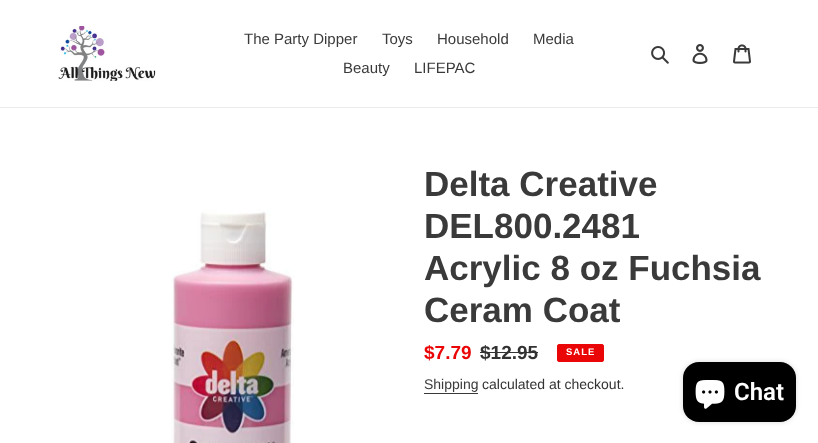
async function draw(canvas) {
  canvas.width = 818
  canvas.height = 443
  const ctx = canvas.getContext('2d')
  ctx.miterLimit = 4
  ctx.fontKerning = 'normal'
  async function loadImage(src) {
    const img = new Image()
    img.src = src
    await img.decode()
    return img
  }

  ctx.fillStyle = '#fff'
  ctx.fillRect(0, 0, 818, 443)
  ctx.fillStyle = '#ebebeb'
  ctx.fillRect(0, 107, 818, 1)
  ctx.drawImage(await loadImage('image0.png'), 58, 26, 98, 55)
  ctx.font = '15px Liberation Sans'
  ctx.fillStyle = '#3a3a3a'
  ctx.fillText('The Party Dipper', 244, 44)
  ctx.fillText('Toys', 382, 44)
  ctx.fillText('Household', 437, 44)
  ctx.fillText('Media', 533, 44)
  ctx.fillText('Beauty', 343, 73)
  ctx.fillText('LIFEPAC', 414, 73)
  ctx.drawImage(await loadImage('image1.png'), 651, 46, 18, 18)
  ctx.drawImage(await loadImage('image2.png'), 692, 44, 16, 20)
  ctx.drawImage(await loadImage('image3.png'), 733, 44, 18, 20)
  ctx.drawImage(await loadImage('image4.png'), 171, 209, 123, 234)
  ctx.font = 'bold 35px Liberation Sans'
  ctx.fillText('Delta Creative', 424, 196)
  ctx.fillText('DEL800.2481', 424, 238)
  ctx.fillText('Acrylic 8 oz Fuchsia', 424, 280)
  ctx.fillText('Ceram Coat', 424, 322)
  ctx.font = 'bold 19px Liberation Sans'
  ctx.fillStyle = '#ea0606'
  ctx.fillText('$7.79', 424, 359)
  ctx.fillStyle = '#333232'
  ctx.fillText('$12.95', 480, 359)
  ctx.fillRect(480, 352, 58, 1)
  ctx.fillStyle = '#ea0606'
  ctx.beginPath()
  ctx.roundRect(557.5, 344.5, 46, 17, 1.5)
  ctx.fill()
  ctx.strokeStyle = '#ea0606'
  ctx.stroke()
  ctx.letterSpacing = '1px'
  ctx.font = 'bold 9.5px Liberation Sans'
  ctx.fillStyle = '#fff'
  ctx.fillText('SALE', 566, 355)
  ctx.letterSpacing = '0px'
  ctx.font = '14px Liberation Sans'
  ctx.fillStyle = '#3a3a3a'
  ctx.fillText('Shipping', 424, 389)
  ctx.fillRect(424, 393, 54, 1)
  ctx.fillStyle = '#333232'
  ctx.fillText('calculated at checkout.', 482, 389)
  ctx.fillStyle = '#00000026'
  ctx.filter = 'blur(2.5px)'
  ctx.beginPath()
  ctx.roundRect(683, 362, 113, 60, 16)
  ctx.fill()
  ctx.filter = 'none'
  ctx.fillStyle = '#000'
  ctx.beginPath()
  ctx.roundRect(683, 362, 113, 60, 16)
  ctx.fill()
  ctx.drawImage(await loadImage('image5.png'), 695, 380, 30, 29)
  ctx.font = '600 24px Roboto'
  ctx.fillStyle = '#fff'
  ctx.fillText('Chat', 734, 400)
}

draw(document.querySelector('canvas'))
